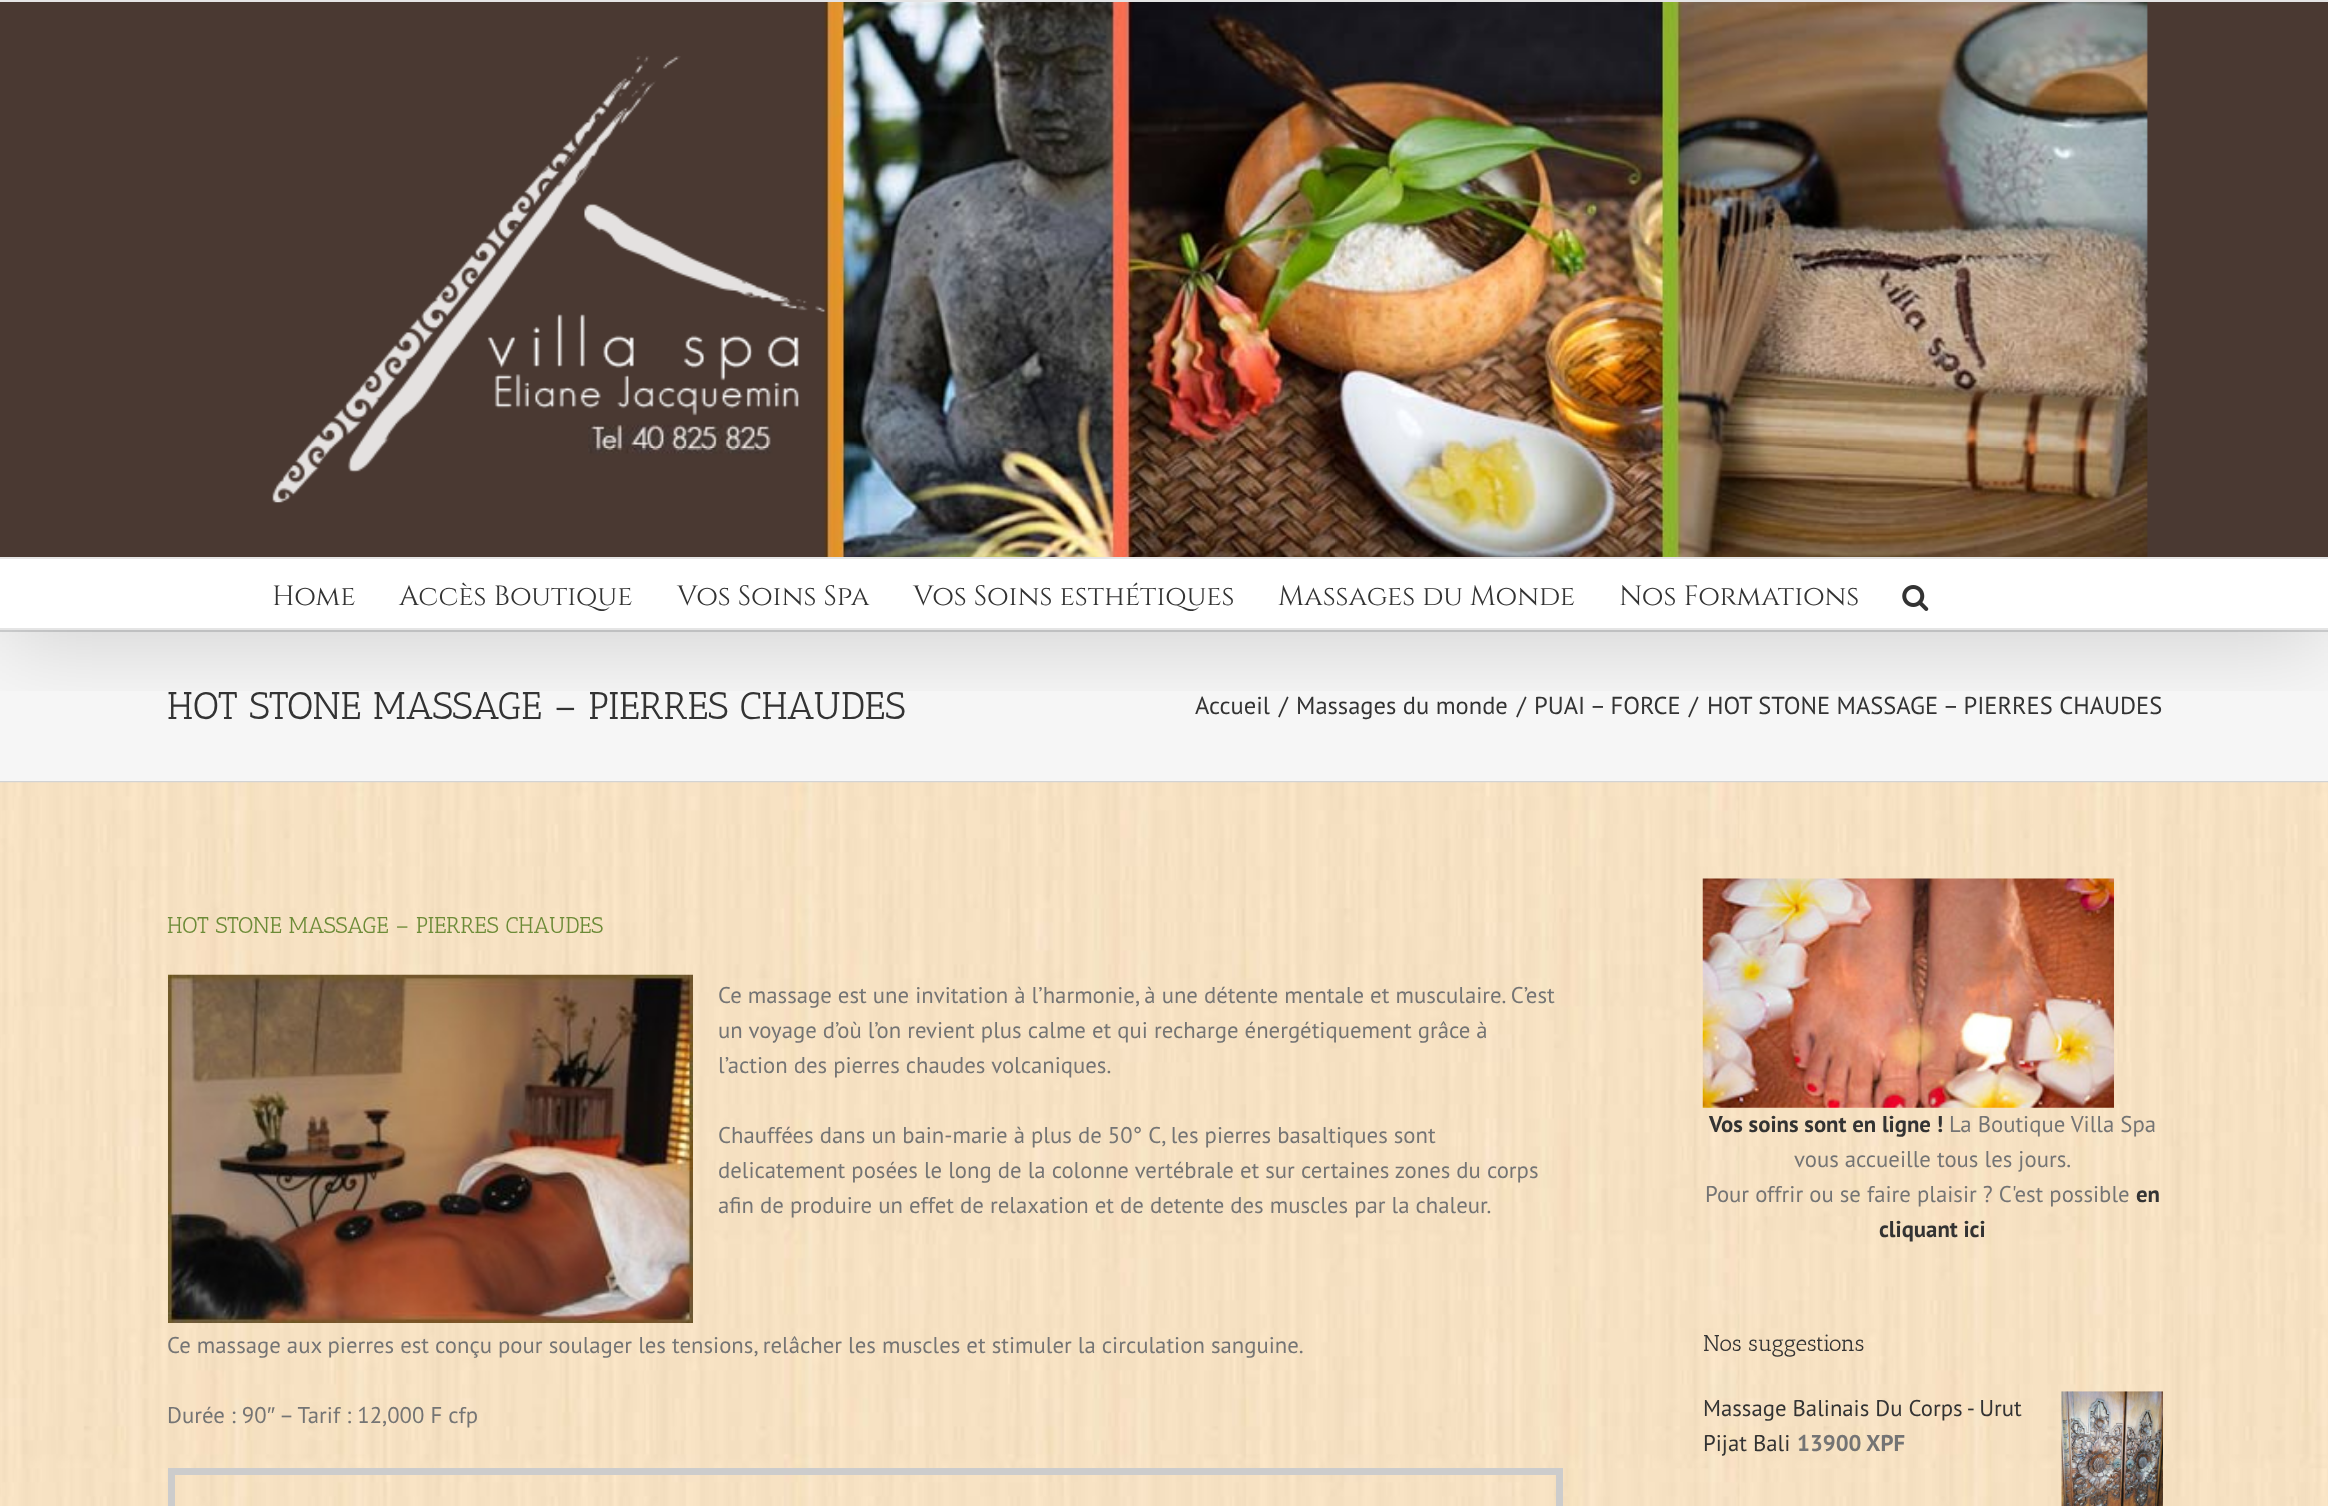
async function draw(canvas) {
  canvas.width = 2328
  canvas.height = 1506
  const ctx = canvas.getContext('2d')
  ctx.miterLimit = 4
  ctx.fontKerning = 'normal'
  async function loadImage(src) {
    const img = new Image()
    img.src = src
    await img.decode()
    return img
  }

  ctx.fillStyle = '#fff'
  ctx.fillRect(0, 0, 2328, 1506)
  ctx.fillStyle = '#f6f6f6'
  ctx.fillRect(0, 632, 2328, 149)
  ctx.fillStyle = '#d2d3d4'
  ctx.fillRect(0, 630, 2328, 2)
  ctx.save()
  ctx.beginPath()
  ctx.rect(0, 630, 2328, 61)
  ctx.clip()
  ctx.fillStyle = '#00000024'
  ctx.filter = 'blur(44px)'
  ctx.beginPath()
  ctx.rect(4, 21, 2322, 623)
  ctx.fill()
  ctx.filter = 'none'
  ctx.restore()
  ctx.fillStyle = '#e5e5e5'
  ctx.fillRect(0, 0, 2328, 2)
  ctx.fillStyle = '#4a3932'
  ctx.fillRect(0, 2, 2328, 555)
  ctx.drawImage(await loadImage('image0.png'), 588, 2, 1560, 555)
  ctx.fillStyle = '#e5e5e5'
  ctx.fillRect(0, 557, 2328, 2)
  ctx.drawImage(await loadImage('image1.png'), 272, 56, 554, 447)
  ctx.fillRect(0, 628, 2328, 2)
  ctx.font = '28px Cinzel'
  ctx.fillStyle = '#333'
  ctx.fillText('Home', 272, 605)
  ctx.fillText('Accès Boutique', 399, 605)
  ctx.fillText('Vos Soins Spa', 677, 605)
  ctx.fillText('Vos Soins esthétiques', 913, 605)
  ctx.fillText('Massages du Monde', 1278, 605)
  ctx.fillText('Nos Formations', 1619, 605)
  ctx.drawImage(await loadImage('image2.png'), 1902, 585, 27, 26)
  ctx.fillStyle = '#d2d3d4'
  ctx.fillRect(0, 781, 2328, 2)
  ctx.font = '38.5px Antic Slab'
  ctx.fillStyle = '#333'
  ctx.fillText('HOT STONE MASSAGE – PIERRES CHAUDES', 167, 719)
  ctx.font = '24.5px PT Sans'
  ctx.fillText('Accueil', 1195, 714)
  ctx.fillText('/', 1279, 714)
  ctx.fillText('Massages du monde', 1296, 714)
  ctx.fillText('/', 1517, 714)
  ctx.fillText('PUAI – FORCE', 1534, 714)
  ctx.fillText('/', 1689, 714)
  ctx.fillText('HOT STONE MASSAGE – PIERRES CHAUDES', 1707, 714)
  ctx.drawImage(await loadImage('image3.png'), 0, 782, 2328, 724)
  ctx.font = '22.75px Antic Slab'
  ctx.fillStyle = '#6c8b37'
  ctx.fillText('HOT STONE MASSAGE – PIERRES CHAUDES', 167, 933)
  ctx.drawImage(await loadImage('image4.png'), 168, 974, 525, 349)
  ctx.font = '22.75px PT Sans'
  ctx.fillStyle = '#747474'
  ctx.fillText('Ce massage est une invitation à l’harmonie, à une détente mentale et musculaire. C’est', 718, 1003)
  ctx.fillText('un voyage d’où l’on revient plus calme et qui recharge énergétiquement grâce à', 718, 1038)
  ctx.fillText('l’action des pierres chaudes volcaniques.', 718, 1073)
  ctx.fillText('Chauffées dans un bain-marie à plus de 50° C, les pierres basaltiques sont', 718, 1143)
  ctx.fillText('delicatement posées le long de la colonne vertébrale et sur certaines zones du corps', 718, 1178)
  ctx.fillText('afin de produire un effet de relaxation et de detente des muscles par la chaleur.', 718, 1213)
  ctx.fillText('Ce massage aux pierres est conçu pour soulager les tensions, relâcher les muscles et stimuler la circulation sanguine.', 167, 1353)
  ctx.fillText('Durée : 90', 167, 1423)
  ctx.font = '22.75px Liberation Sans'
  ctx.fillText('″', 267, 1423)
  ctx.font = '22.75px PT Sans'
  ctx.fillText('– Tarif : 12,000 F cfp', 279, 1423)
  ctx.strokeStyle = '#ccc'
  ctx.lineWidth = 7
  ctx.strokeRect(171.5, 1471.5, 1388, 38)
  ctx.drawImage(await loadImage('image5.png'), 1702, 878, 412, 230)
  ctx.font = 'bold 22.75px PT Sans'
  ctx.fillStyle = '#333'
  ctx.fillText('Vos soins sont en ligne !', 1709, 1132)
  ctx.font = '22.75px PT Sans'
  ctx.fillStyle = '#747474'
  ctx.fillText('La Boutique Villa Spa', 1949, 1132)
  ctx.fillText('vous accueille tous les jours.', 1794, 1167)
  ctx.fillText('Pour offrir ou se faire plaisir ? C\'est possible', 1705, 1202)
  ctx.font = 'bold 22.75px PT Sans'
  ctx.fillStyle = '#333'
  ctx.fillText('en', 2136, 1202)
  ctx.fillText('cliquant ici', 1879, 1237)
  ctx.font = '22.75px Antic Slab'
  ctx.fillText('Nos suggestions', 1703, 1351)
  ctx.font = '22.75px PT Sans'
  ctx.fillText('Massage Balinais Du Corps - Urut', 1703, 1416)
  ctx.drawImage(await loadImage('image6.png'), 2061, 1391, 102, 115)
  ctx.fillText('Pijat Bali', 1703, 1451)
  ctx.font = 'bold 22.75px PT Sans'
  ctx.fillStyle = '#747474'
  ctx.fillText('13900', 1797, 1451)
  ctx.fillText('XPF', 1866, 1451)
}

draw(document.querySelector('canvas'))
